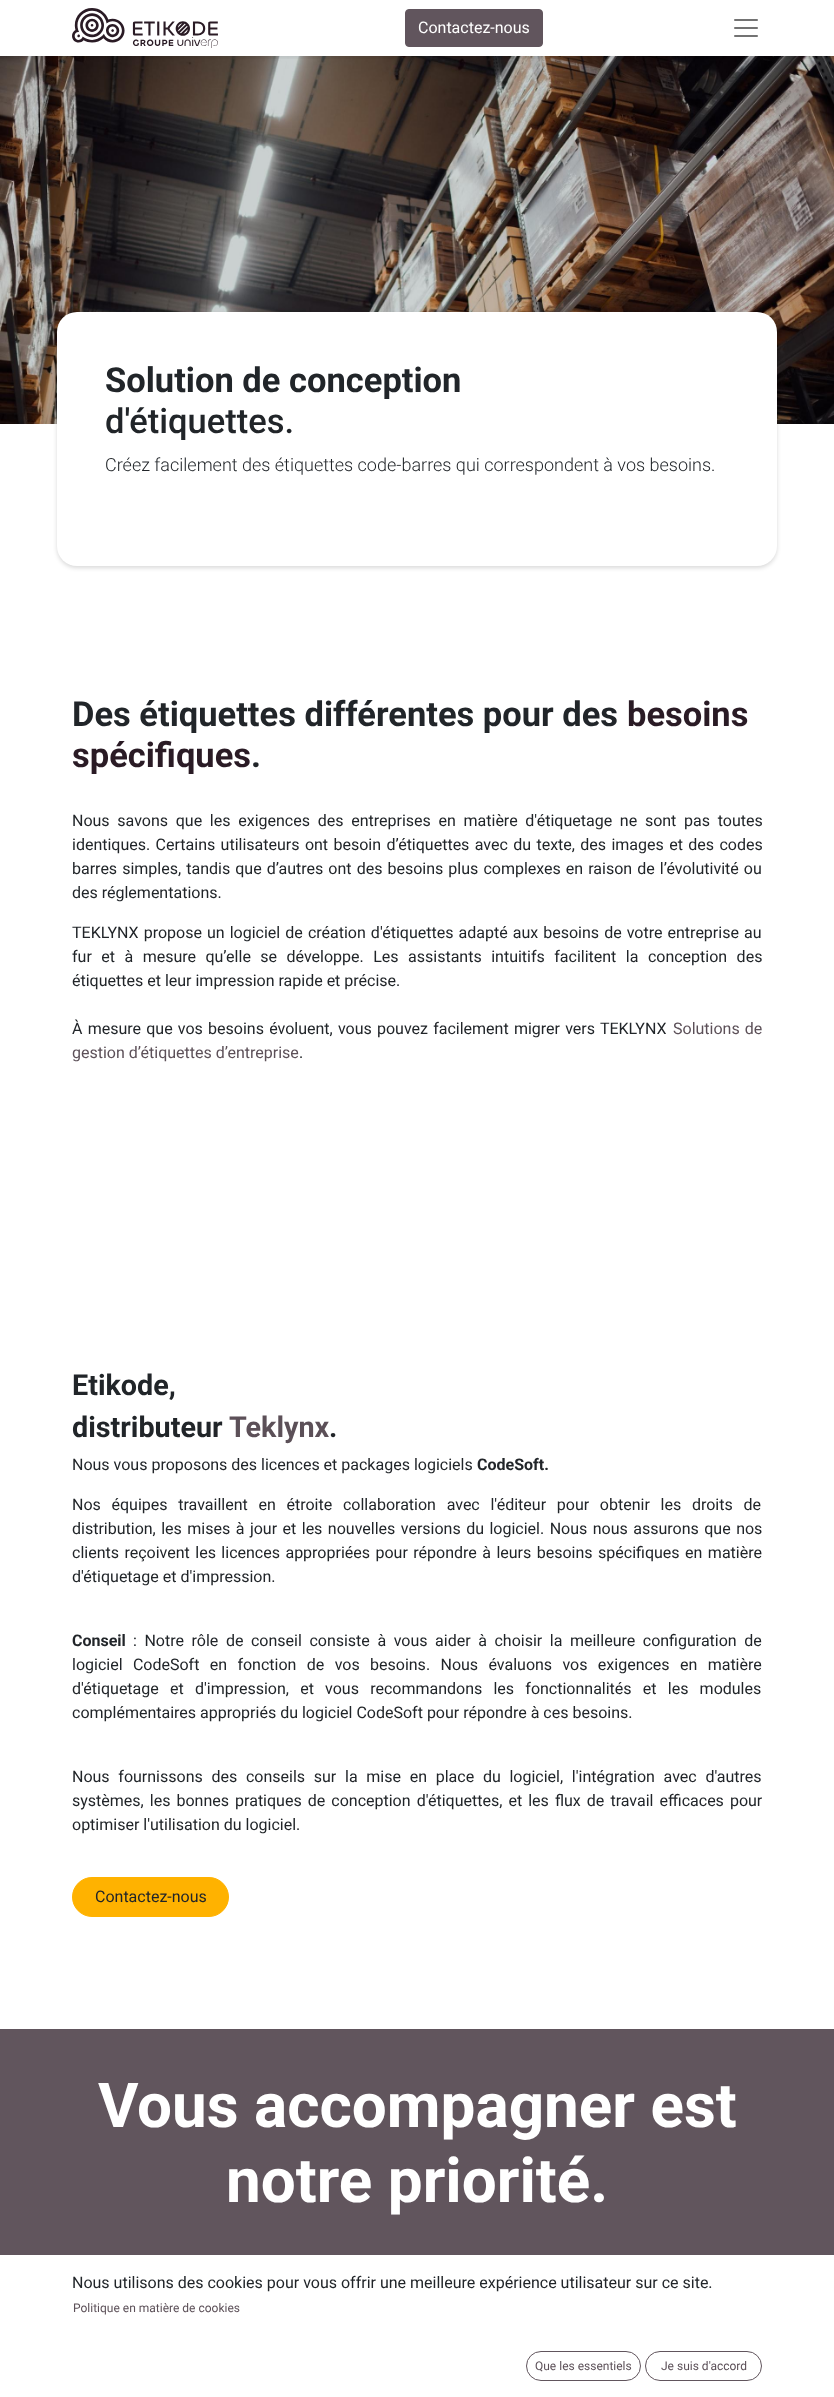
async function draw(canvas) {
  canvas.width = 834
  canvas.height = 2397
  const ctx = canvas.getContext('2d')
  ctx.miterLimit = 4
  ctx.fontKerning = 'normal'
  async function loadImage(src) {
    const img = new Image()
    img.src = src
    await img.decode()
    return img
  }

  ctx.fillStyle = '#fff'
  ctx.fillRect(0, 0, 834, 2397)
  ctx.drawImage(await loadImage('image2.png'), 0, 56, 834, 368)
  ctx.save()
  ctx.beginPath()
  ctx.rect(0, 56, 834, 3)
  ctx.clip()
  ctx.fillStyle = '#00000012'
  ctx.filter = 'blur(2px)'
  ctx.beginPath()
  ctx.rect(0, 2, 834, 56)
  ctx.fill()
  ctx.filter = 'none'
  ctx.restore()
  ctx.drawImage(await loadImage('image0.png'), 72, 8, 146, 40)
  ctx.fillStyle = '#61555d'
  ctx.beginPath()
  ctx.roundRect(405.5, 9.5, 137, 37, 3.5)
  ctx.fill()
  ctx.strokeStyle = '#61555d'
  ctx.stroke()
  ctx.font = '16px Roboto'
  ctx.fillStyle = '#fff'
  ctx.fillText('Contactez-nous', 418, 33)
  ctx.drawImage(await loadImage('image1.png'), 734, 19, 24, 18)
  ctx.fillStyle = '#00000026'
  ctx.filter = 'blur(2px)'
  ctx.beginPath()
  ctx.roundRect(57, 314, 720, 254, 20)
  ctx.fill()
  ctx.filter = 'none'
  ctx.fillStyle = '#fff'
  ctx.beginPath()
  ctx.roundRect(57, 312, 720, 254, 20)
  ctx.fill()
  ctx.font = 'bold 34.5px Roboto'
  ctx.fillStyle = '#212529'
  ctx.fillText('Solution de conception', 105, 392)
  ctx.font = '500 34.5px Roboto'
  ctx.fillText('d\'étiquettes.', 105, 433)
  ctx.font = '300 18px Roboto'
  ctx.fillText('Créez facilement des étiquettes code-barres qui correspondent à vos besoins.', 105, 471)
  ctx.font = 'bold 34.5px Roboto'
  ctx.fillText('Des étiquettes différentes pour des', 72, 726)
  ctx.fillStyle = '#2a1b25'
  ctx.fillText('besoins', 627, 726)
  ctx.fillText('spécifiques', 72, 767)
  ctx.fillStyle = '#212529'
  ctx.fillText('.', 251, 767)
  ctx.wordSpacing = '3.75px'
  ctx.font = '16px Roboto'
  ctx.fillText('Nous savons que les exigences des entreprises en matière d\'étiquetage ne sont pas toutes', 72, 826)
  ctx.wordSpacing = '1.4px'
  ctx.fillText('identiques. Certains utilisateurs ont besoin d’étiquettes avec du texte, des images et des codes', 72, 850)
  ctx.wordSpacing = '1.1px'
  ctx.fillText('barres simples, tandis que d’autres ont des besoins plus complexes en raison de l’évolutivité ou', 72, 874)
  ctx.wordSpacing = '0px'
  ctx.fillText('des réglementations.', 72, 898)
  ctx.wordSpacing = '1.1px'
  ctx.fillText('TEKLYNX propose un logiciel de création d\'étiquettes adapté aux besoins de votre entreprise au', 72, 938)
  ctx.wordSpacing = '5.5px'
  ctx.fillText('fur et à mesure qu’elle se développe. Les assistants intuitifs facilitent la conception des', 72, 962)
  ctx.wordSpacing = '0px'
  ctx.fillText('étiquettes et leur impression rapide et précise.', 72, 986)
  ctx.wordSpacing = '1.25px'
  ctx.fillText('À mesure que vos besoins évoluent, vous pouvez facilement migrer vers TEKLYNX', 72, 1034)
  ctx.wordSpacing = '1px'
  ctx.fillStyle = '#5c5058'
  ctx.fillText('Solutions de', 673, 1034)
  ctx.wordSpacing = '0px'
  ctx.fillText('gestion d’étiquettes d’entreprise', 72, 1058)
  ctx.fillStyle = '#212529'
  ctx.fillText('.', 299, 1058)
  ctx.font = 'bold 28.75px Roboto'
  ctx.fillText('Etikode,', 72, 1395)
  ctx.fillText('distributeur', 72, 1437)
  ctx.fillStyle = '#5c5058'
  ctx.fillText('Teklynx', 229, 1437)
  ctx.fillStyle = '#212529'
  ctx.fillText('.', 329, 1437)
  ctx.font = '16px Roboto'
  ctx.fillText('Nous vous proposons des licences et packages logiciels', 72, 1470)
  ctx.font = 'bold 16px Roboto'
  ctx.fillText('CodeSoft.', 477, 1470)
  ctx.wordSpacing = '6.75px'
  ctx.font = '16px Roboto'
  ctx.fillText('Nos équipes travaillent en étroite collaboration avec l\'éditeur pour obtenir les droits de', 72, 1510)
  ctx.wordSpacing = '1.5px'
  ctx.fillText('distribution, les mises à jour et les nouvelles versions du logiciel. Nous nous assurons que nos', 72, 1534)
  ctx.fillText('clients reçoivent les licences appropriées pour répondre à leurs besoins spécifiques en matière', 72, 1558)
  ctx.wordSpacing = '0px'
  ctx.fillText('d\'étiquetage et d\'impression.', 72, 1582)
  ctx.font = 'bold 16px Roboto'
  ctx.fillText('Conseil', 72, 1646)
  ctx.wordSpacing = '3.6px'
  ctx.font = '16px Roboto'
  ctx.fillText(': Notre rôle de conseil consiste à vous aider à choisir la meilleure configuration de', 133, 1646)
  ctx.wordSpacing = '6.4px'
  ctx.fillText('logiciel CodeSoft en fonction de vos besoins. Nous évaluons vos exigences en matière', 72, 1670)
  ctx.wordSpacing = '7.25px'
  ctx.fillText('d\'étiquetage et d\'impression, et vous recommandons les fonctionnalités et les modules', 72, 1694)
  ctx.wordSpacing = '0px'
  ctx.fillText('complémentaires appropriés du logiciel CodeSoft pour répondre à ces besoins.', 72, 1718)
  ctx.wordSpacing = '4.75px'
  ctx.fillText('Nous fournissons des conseils sur la mise en place du logiciel, l\'intégration avec d\'autres', 72, 1782)
  ctx.wordSpacing = '2.1px'
  ctx.fillText('systèmes, les bonnes pratiques de conception d\'étiquettes, et les flux de travail efficaces pour', 72, 1806)
  ctx.wordSpacing = '0px'
  ctx.fillText('optimiser l\'utilisation du logiciel.', 72, 1830)
  ctx.fillStyle = '#ffb200'
  ctx.beginPath()
  ctx.roundRect(72.5, 1877.5, 156, 39, 19.5)
  ctx.fill()
  ctx.strokeStyle = '#ffb200'
  ctx.stroke()
  ctx.fillStyle = '#212529'
  ctx.fillText('Contactez-nous', 95, 1902)
  ctx.fillStyle = '#61555d'
  ctx.fillRect(0, 2029, 834, 226)
  ctx.font = 'bold 62px Roboto'
  ctx.fillStyle = '#fff'
  ctx.fillText('Vous accompagner est', 98, 2127)
  ctx.fillText('notre priorité.', 226, 2202)
  ctx.font = '16px Roboto'
  ctx.fillStyle = '#212529'
  ctx.fillText('Nous utilisons des cookies pour vous offrir une meilleure expérience utilisateur sur ce site.', 72, 2288)
  ctx.font = '12px Roboto'
  ctx.fillStyle = '#5c5058'
  ctx.fillText('Politique en matière de cookies', 73, 2312)
  ctx.beginPath()
  ctx.roundRect(526.5, 2351.5, 114, 29, 14.5)
  ctx.strokeStyle = '#61555d'
  ctx.stroke()
  ctx.fillText('Que les essentiels', 535, 2370)
  ctx.beginPath()
  ctx.roundRect(645.5, 2351.5, 116, 29, 14.5)
  ctx.stroke()
  ctx.fillText('Je suis d\'accord', 661, 2370)
}

draw(document.querySelector('canvas'))
